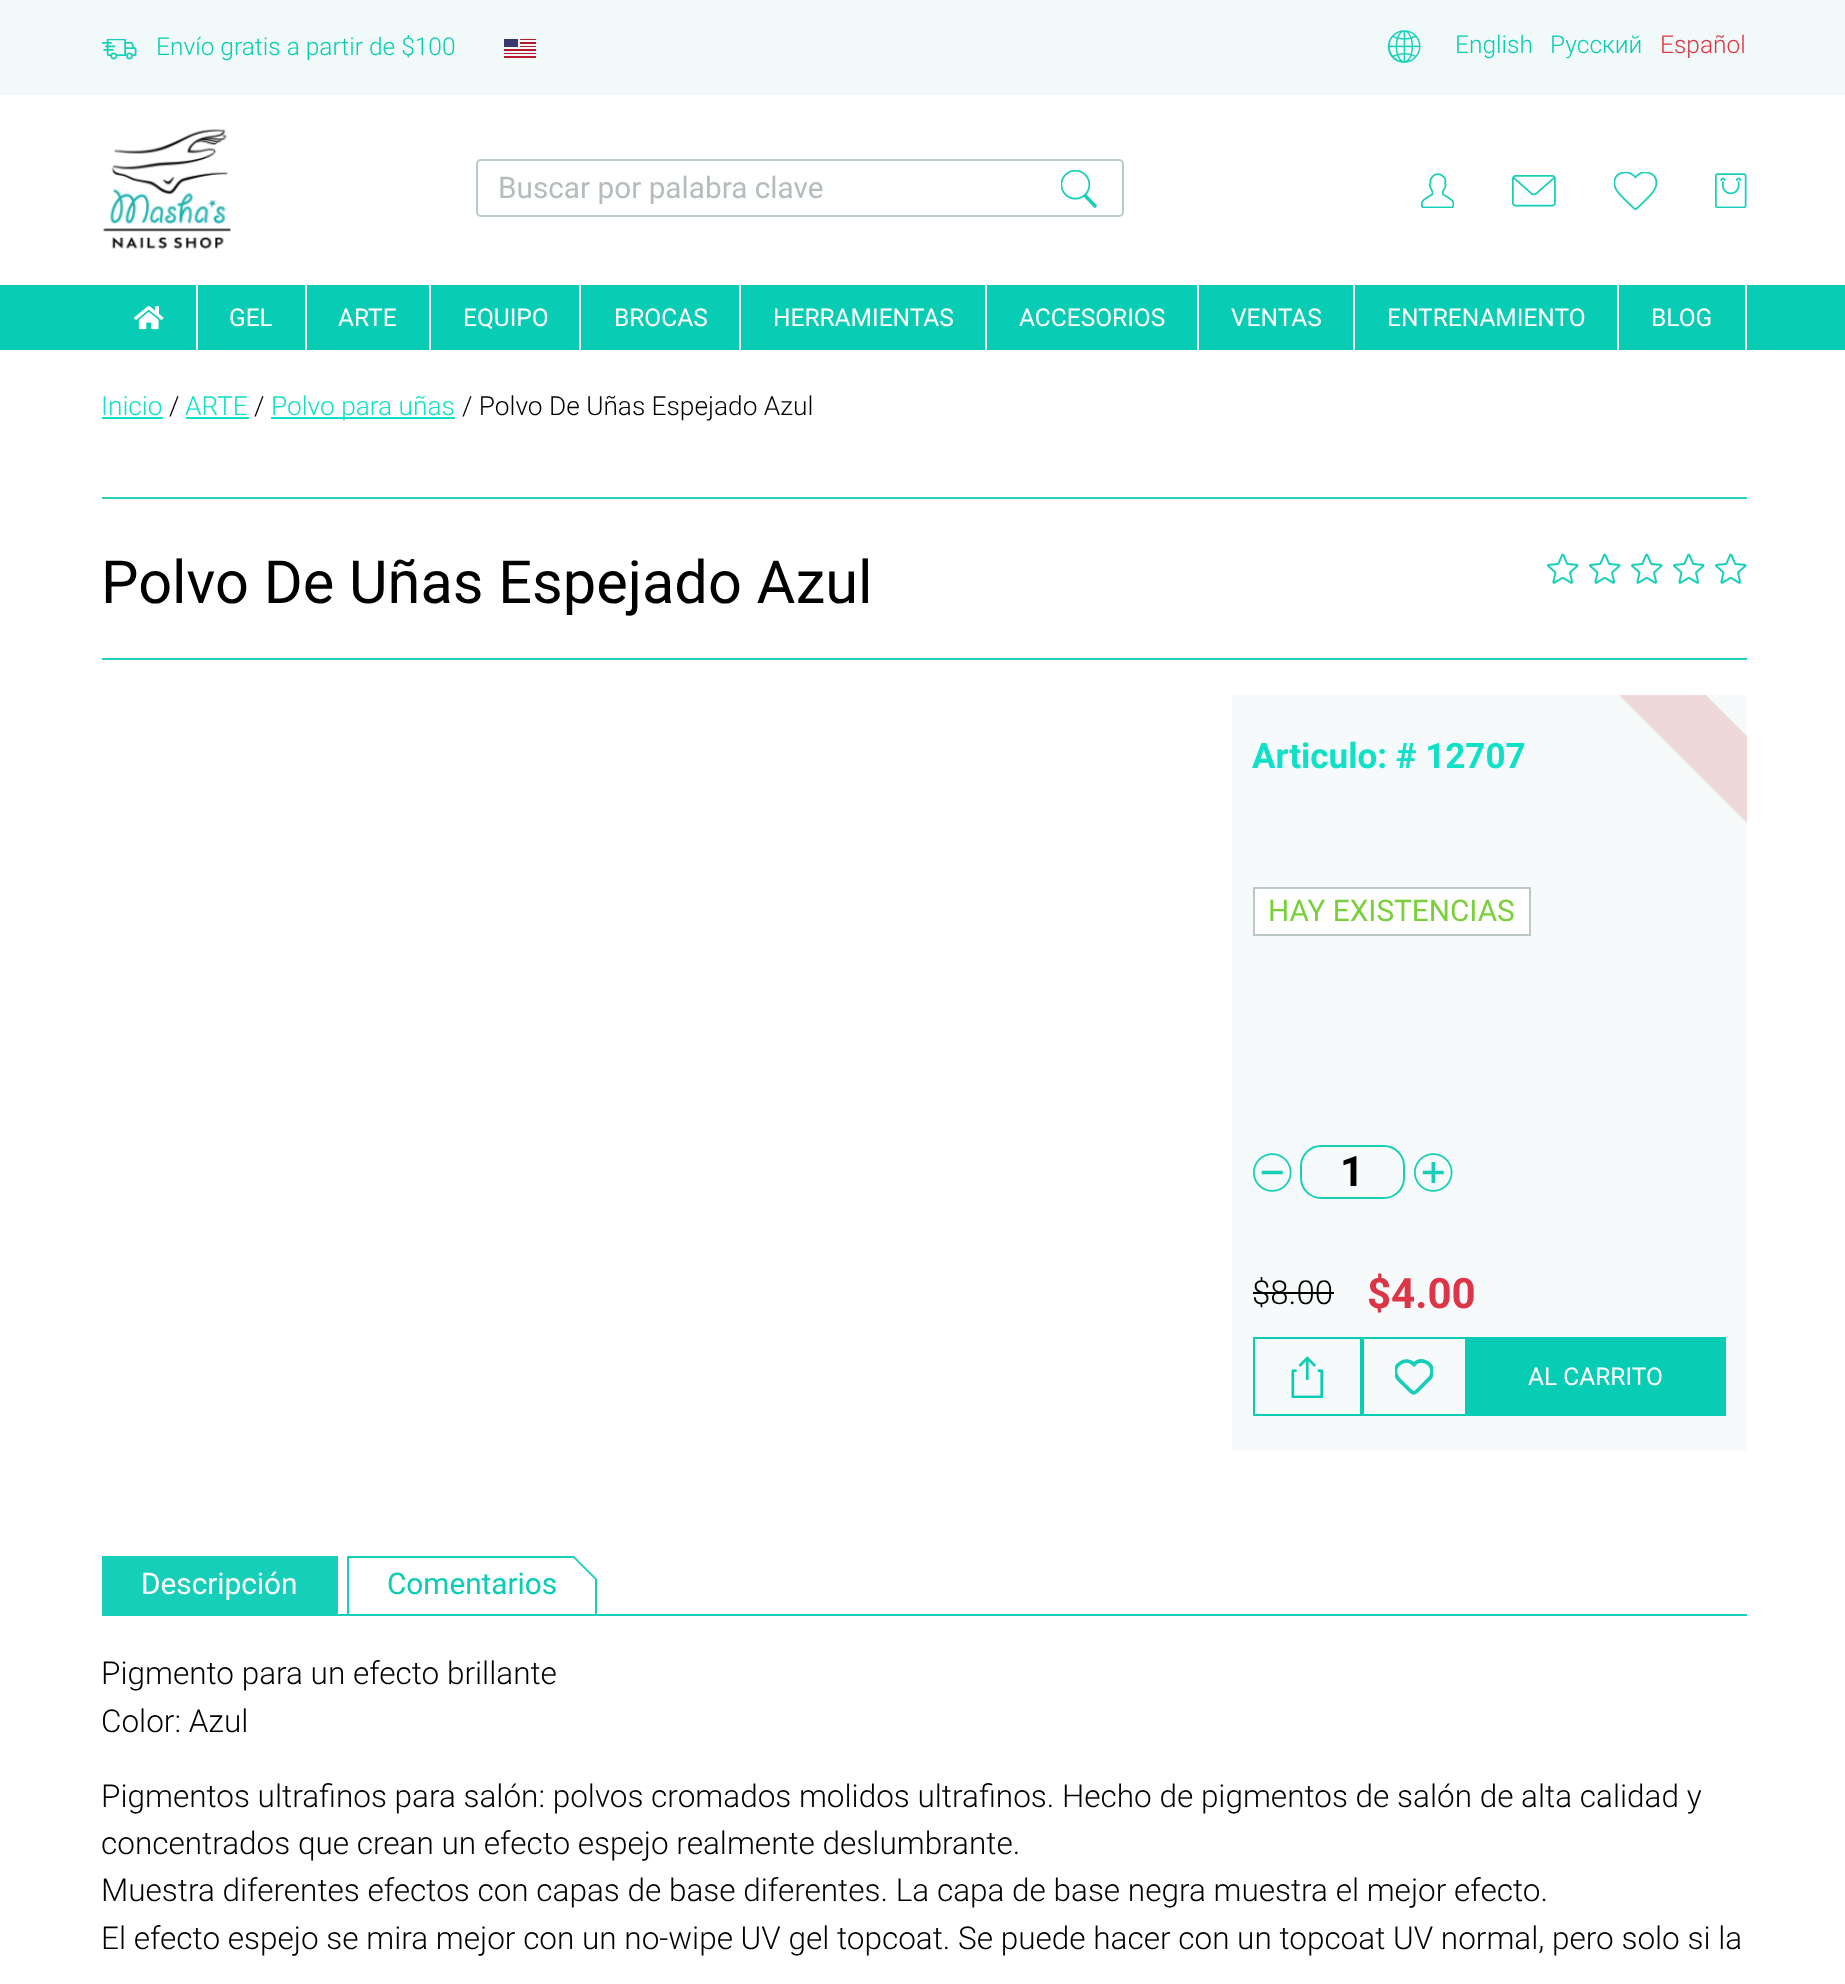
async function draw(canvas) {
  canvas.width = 1845
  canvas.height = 1984
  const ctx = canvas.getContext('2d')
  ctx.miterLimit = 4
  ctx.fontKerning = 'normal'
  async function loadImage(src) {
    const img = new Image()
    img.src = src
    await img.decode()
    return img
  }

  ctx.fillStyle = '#fff'
  ctx.fillRect(0, 0, 1845, 1984)
  ctx.fillStyle = '#f1faf9'
  ctx.fillRect(0, 0, 1845, 95)
  ctx.drawImage(await loadImage('image0.png'), 102, 39, 35, 21)
  ctx.font = '300 24.5px Roboto'
  ctx.fillStyle = '#09ccb4'
  ctx.fillText('Envío gratis a partir de $100', 156, 55)
  ctx.drawImage(await loadImage('image1.png'), 504, 39, 32, 19)
  ctx.drawImage(await loadImage('image2.png'), 1387, 30, 34, 33)
  ctx.fillText('English', 1455, 53)
  ctx.fillText('Русский', 1550, 53)
  ctx.fillStyle = '#dc3545'
  ctx.fillText('Español', 1660, 53)
  ctx.drawImage(await loadImage('image3.png'), 103, 129, 128, 120)
  ctx.beginPath()
  ctx.roundRect(477, 160, 646, 56, 4)
  ctx.strokeStyle = '#bbcac8'
  ctx.lineWidth = 2
  ctx.stroke()
  ctx.font = '29.75px Roboto'
  ctx.fillStyle = '#b5bdbc'
  ctx.fillText('Buscar por palabra clave', 498, 198)
  ctx.drawImage(await loadImage('image4.png'), 1061, 170, 36, 38)
  ctx.drawImage(await loadImage('image5.png'), 1421, 173, 33, 35)
  ctx.drawImage(await loadImage('image6.png'), 1512, 175, 44, 32)
  ctx.drawImage(await loadImage('image7.png'), 1614, 172, 43, 38)
  ctx.drawImage(await loadImage('image8.png'), 1715, 173, 32, 35)
  ctx.fillStyle = '#09ccb4'
  ctx.fillRect(0, 285, 1845, 65)
  ctx.fillStyle = '#fff'
  ctx.fillRect(196, 285, 2, 65)
  ctx.drawImage(await loadImage('image9.png'), 134, 306, 30, 24)
  ctx.fillRect(305, 285, 2, 65)
  ctx.font = '24.5px Roboto'
  ctx.fillText('GEL', 229, 326)
  ctx.fillRect(429, 285, 2, 65)
  ctx.fillText('ARTE', 338, 326)
  ctx.fillRect(579, 285, 2, 65)
  ctx.fillText('EQUIPO', 463, 326)
  ctx.fillRect(739, 285, 2, 65)
  ctx.fillText('BROCAS', 614, 326)
  ctx.fillRect(985, 285, 2, 65)
  ctx.fillText('HERRAMIENTAS', 773, 326)
  ctx.fillRect(1197, 285, 2, 65)
  ctx.fillText('ACCESORIOS', 1019, 326)
  ctx.fillRect(1353, 285, 2, 65)
  ctx.fillText('VENTAS', 1231, 326)
  ctx.fillRect(1617, 285, 2, 65)
  ctx.fillText('ENTRENAMIENTO', 1387, 326)
  ctx.fillRect(1745, 285, 2, 65)
  ctx.fillText('BLOG', 1651, 326)
  ctx.font = '300 26.25px Roboto'
  ctx.fillStyle = '#0fe0c7'
  ctx.fillText('Inicio', 101, 415)
  ctx.fillRect(102, 417, 61, 2)
  ctx.fillStyle = '#000'
  ctx.fillText('/', 169, 415)
  ctx.fillStyle = '#0fe0c7'
  ctx.fillText('ARTE', 185, 415)
  ctx.fillRect(186, 417, 63, 2)
  ctx.fillStyle = '#000'
  ctx.fillText('/', 254, 415)
  ctx.fillStyle = '#0fe0c7'
  ctx.fillRect(271, 417, 184, 2)
  ctx.fillText('Polvo para uñas', 271, 415)
  ctx.fillStyle = '#000'
  ctx.fillText('/ Polvo De Uñas Espejado Azul', 462, 415)
  ctx.fillStyle = '#27d2bd'
  ctx.fillRect(102, 497, 1645, 2)
  ctx.fillRect(102, 658, 1645, 2)
  ctx.font = '59.5px Roboto'
  ctx.fillStyle = '#000'
  ctx.fillText('Polvo De Uñas Espejado Azul', 101, 603)
  ctx.drawImage(await loadImage('image10.png'), 1547, 553, 32, 31)
  ctx.drawImage(await loadImage('image10.png'), 1589, 553, 32, 31)
  ctx.drawImage(await loadImage('image10.png'), 1631, 553, 32, 31)
  ctx.drawImage(await loadImage('image10.png'), 1673, 553, 32, 31)
  ctx.drawImage(await loadImage('image10.png'), 1715, 553, 32, 31)
  ctx.fillStyle = '#f6fafa'
  ctx.fillRect(1232, 695, 515, 756)
  ctx.font = 'bold 35px Roboto'
  ctx.fillStyle = '#0fe0c7'
  ctx.fillText('Articulo: # 12707', 1252, 768)
  ctx.save()
  ctx.beginPath()
  ctx.rect(1615, 695, 132, 131)
  ctx.clip()
  ctx.fillStyle = '#efd8d8'
  ctx.beginPath()
  ctx.moveTo(1653, 642)
  ctx.lineTo(1801, 790)
  ctx.lineTo(1758, 834)
  ctx.lineTo(1609, 685)
  ctx.closePath()
  ctx.fill()
  ctx.restore()
  ctx.fillStyle = '#fff'
  ctx.beginPath()
  ctx.rect(1254, 888, 276, 47)
  ctx.fill()
  ctx.stroke()
  ctx.font = '29.75px Roboto'
  ctx.fillStyle = '#7ad03a'
  ctx.fillText('HAY EXISTENCIAS', 1268, 921)
  ctx.drawImage(await loadImage('image11.png'), 1253, 1153, 39, 39)
  ctx.beginPath()
  ctx.roundRect(1301, 1146, 103, 52, 20)
  ctx.strokeStyle = '#17cfb9'
  ctx.stroke()
  ctx.font = 'bold 42px Roboto'
  ctx.fillStyle = '#000'
  ctx.fillText('1', 1340, 1186)
  ctx.drawImage(await loadImage('image12.png'), 1414, 1153, 39, 39)
  ctx.font = '300 33px Roboto'
  ctx.fillText('$8.00', 1252, 1304)
  ctx.fillRect(1253, 1292, 81, 2)
  ctx.font = 'bold 42px Roboto'
  ctx.fillStyle = '#dc3545'
  ctx.fillText('$4.00', 1367, 1308)
  ctx.strokeStyle = '#09ccb4'
  ctx.strokeRect(1254, 1338, 107, 77)
  ctx.drawImage(await loadImage('image13.png'), 1291, 1356, 32, 42)
  ctx.strokeRect(1363, 1338, 103, 77)
  ctx.save()
  ctx.beginPath()
  ctx.rect(1395, 1358, 38, 39)
  ctx.clip()
  ctx.beginPath()
  ctx.moveTo(1432, 1371.5)
  ctx.bezierCurveTo(1432, 1374.5, 1431, 1377.5, 1428.5, 1379.5)
  ctx.lineTo(1417, 1391)
  ctx.bezierCurveTo(1414.5, 1393.5, 1413.5, 1393.5, 1410.5, 1391)
  ctx.lineTo(1404.5, 1385)
  ctx.bezierCurveTo(1402, 1382.5, 1398, 1379.5, 1396.5, 1376)
  ctx.bezierCurveTo(1391.5, 1365, 1406, 1356, 1414, 1364.5)
  ctx.bezierCurveTo(1420, 1357.5, 1432, 1362, 1432, 1371.5)
  ctx.closePath()
  ctx.strokeStyle = '#17cfb9'
  ctx.lineWidth = 3.7
  ctx.stroke()
  ctx.restore()
  ctx.fillStyle = '#09ccb4'
  ctx.fillRect(1467, 1337, 259, 79)
  ctx.font = '24.5px Roboto'
  ctx.fillStyle = '#fff'
  ctx.fillText('AL CARRITO', 1528, 1385)
  ctx.fillStyle = '#17cfb9'
  ctx.fillRect(102, 1614, 1645, 2)
  ctx.fillRect(102, 1556, 236, 58)
  ctx.font = '29.75px Roboto'
  ctx.fillStyle = '#fff'
  ctx.fillText('Descripción', 141, 1594)
  ctx.fillStyle = '#17cfb9'
  ctx.fillRect(347, 1556, 227, 2)
  ctx.fillRect(595, 1579, 2, 35)
  ctx.fillRect(347, 1556, 2, 58)
  ctx.beginPath()
  ctx.moveTo(574.5, 1556.5)
  ctx.lineTo(596.5, 1578.5)
  ctx.lineTo(595.5, 1580)
  ctx.lineTo(573, 1557.5)
  ctx.closePath()
  ctx.fill()
  ctx.fillStyle = '#09ccb4'
  ctx.fillText('Comentarios', 387, 1594)
  ctx.font = '300 31.5px Roboto'
  ctx.fillStyle = '#000'
  ctx.fillText('Pigmento para un efecto brillante', 101, 1684)
  ctx.fillText('Color: Azul', 101, 1732)
  ctx.fillText('Pigmentos ultrafinos para salón: polvos cromados molidos ultrafinos. Hecho de pigmentos de salón de alta calidad y', 101, 1807)
  ctx.fillText('concentrados que crean un efecto espejo realmente deslumbrante.', 101, 1854)
  ctx.fillText('Muestra diferentes efectos con capas de base diferentes. La capa de base negra muestra el mejor efecto.', 101, 1901)
  ctx.fillText('El efecto espejo se mira mejor con un no-wipe UV gel topcoat. Se puede hacer con un topcoat UV normal, pero solo si la', 101, 1949)
}

draw(document.querySelector('canvas'))
